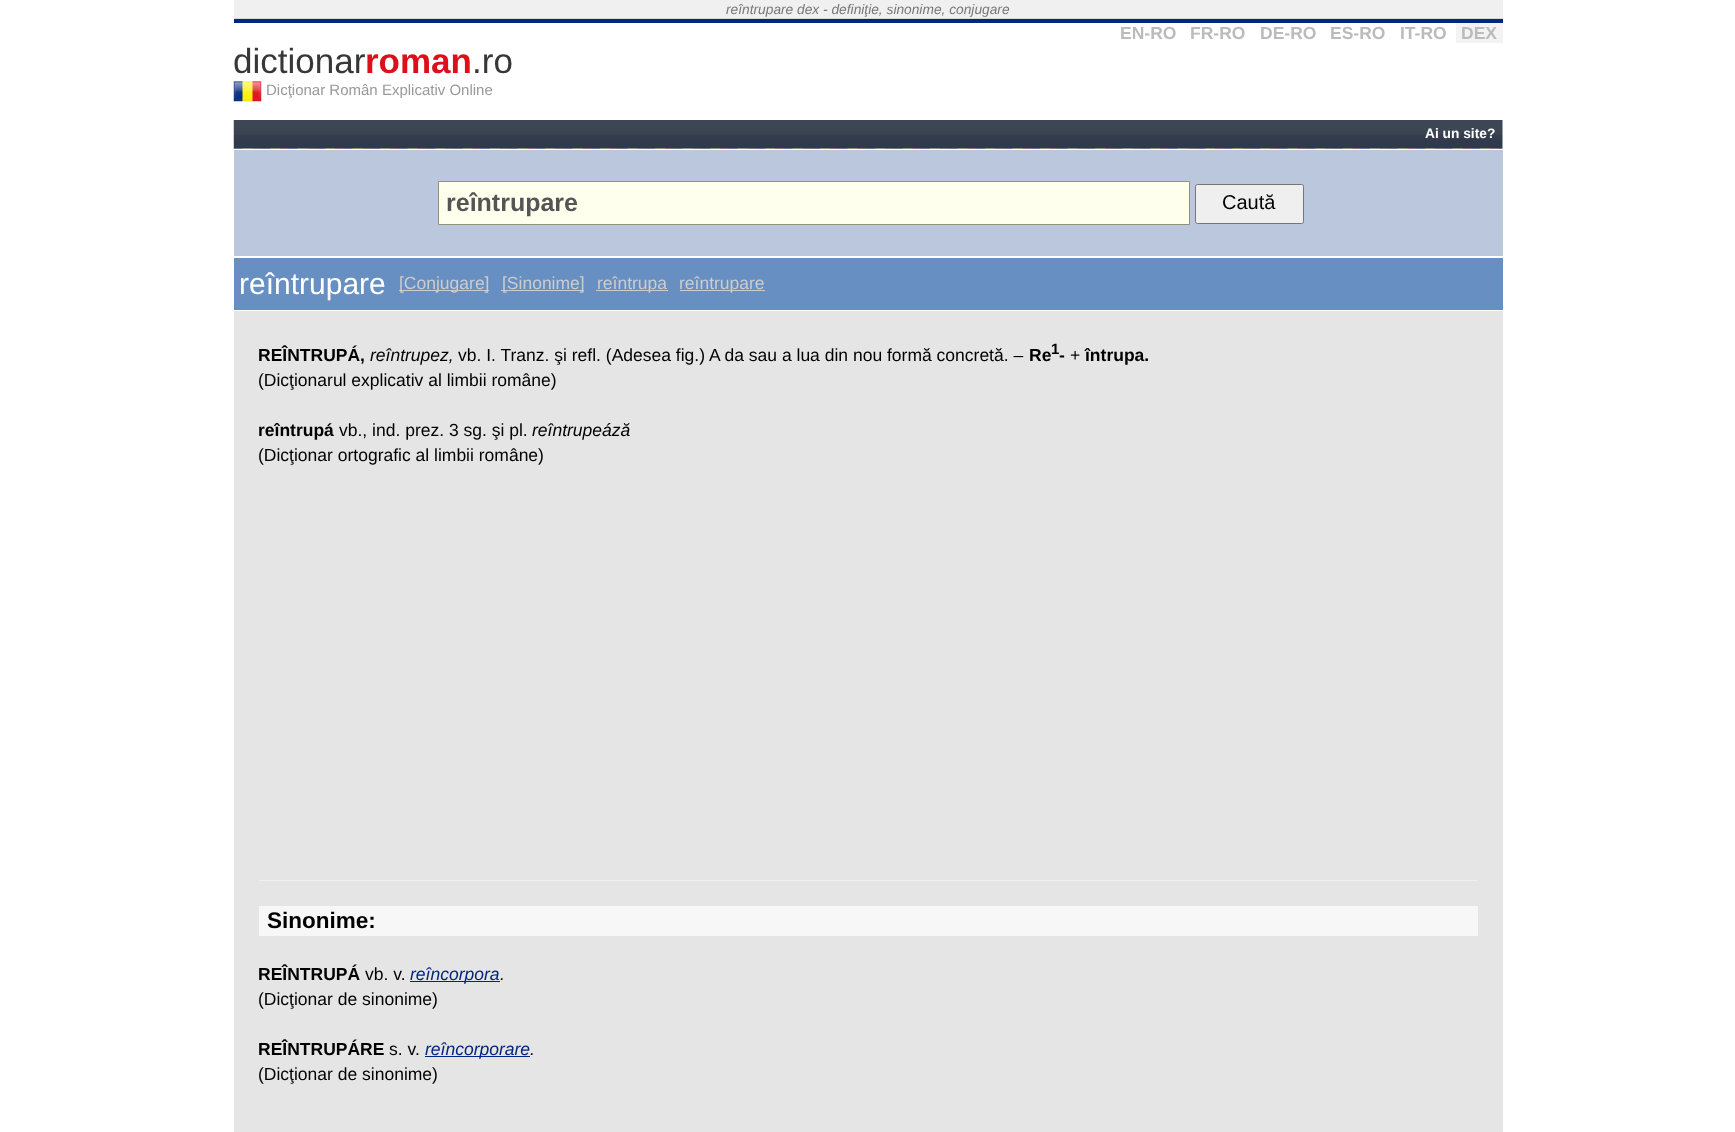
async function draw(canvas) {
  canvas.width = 1735
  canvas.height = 1132
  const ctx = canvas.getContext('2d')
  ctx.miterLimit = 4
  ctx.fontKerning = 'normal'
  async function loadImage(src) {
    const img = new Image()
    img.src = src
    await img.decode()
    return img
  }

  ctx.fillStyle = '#fff'
  ctx.fillRect(0, 0, 1735, 1132)
  ctx.fillStyle = '#f0f0f0'
  ctx.fillRect(234, 0, 1269, 18)
  ctx.fillStyle = '#d6d6d6'
  ctx.fillRect(234, 18, 1269, 1)
  ctx.font = 'italic 13.75px Liberation Sans'
  ctx.fillStyle = '#777'
  ctx.fillText('reîntrupare dex - definiţie, sinonime, conjugare', 726, 14)
  ctx.fillStyle = '#01267f'
  ctx.fillRect(234, 19, 1269, 4)
  ctx.font = 'bold 17.5px Liberation Sans'
  ctx.fillStyle = '#bbb'
  ctx.fillText('EN-RO', 1120, 39)
  ctx.fillText('FR-RO', 1190, 39)
  ctx.fillText('DE-RO', 1260, 39)
  ctx.fillText('ES-RO', 1330, 39)
  ctx.fillText('IT-RO', 1400, 39)
  ctx.fillStyle = '#f3f3f3'
  ctx.fillRect(1456, 23, 47, 20)
  ctx.fillStyle = '#bbb'
  ctx.fillText('DEX', 1461, 39)
  ctx.font = '35px Liberation Sans'
  ctx.fillStyle = '#373737'
  ctx.fillText('dictionar', 233, 73)
  ctx.font = 'bold 35px Liberation Sans'
  ctx.fillStyle = '#dd0f1b'
  ctx.fillText('roman', 365, 73)
  ctx.font = '35px Liberation Sans'
  ctx.fillStyle = '#373737'
  ctx.fillText('.ro', 472, 73)
  ctx.drawImage(await loadImage('image0.png'), 233, 81, 29, 21)
  ctx.font = '15px Liberation Sans'
  ctx.fillStyle = '#999'
  ctx.fillText('Dicţionar Român Explicativ Online', 266, 95)
  ctx.drawImage(await loadImage('image1.png'), 233, 120, 1270, 29)
  ctx.font = 'bold 13.75px Liberation Sans'
  ctx.fillStyle = '#fff'
  ctx.fillText('Ai un site?', 1425, 138)
  ctx.fillStyle = '#bac7dc'
  ctx.fillRect(234, 150, 1269, 106)
  ctx.fillStyle = '#ffe'
  ctx.beginPath()
  ctx.rect(438.5, 181.5, 751, 43)
  ctx.fill()
  ctx.strokeStyle = '#92917c'
  ctx.stroke()
  ctx.font = 'bold 25px Liberation Sans'
  ctx.fillStyle = '#555'
  ctx.fillText('reîntrupare', 446, 211)
  ctx.fillStyle = '#efefef'
  ctx.beginPath()
  ctx.roundRect(1195.5, 184.5, 108, 39, 2)
  ctx.fill()
  ctx.strokeStyle = '#767676'
  ctx.stroke()
  ctx.font = '20px Liberation Sans'
  ctx.fillStyle = '#000'
  ctx.fillText('Caută', 1222, 209)
  ctx.fillStyle = '#678fc2'
  ctx.fillRect(234, 258, 1269, 52)
  ctx.font = '30px Liberation Sans'
  ctx.fillStyle = '#fff'
  ctx.fillText('reîntrupare', 239, 294)
  ctx.fillStyle = '#ccc'
  ctx.fillRect(399, 290, 90, 1)
  ctx.font = '17.5px Liberation Sans'
  ctx.fillText('[Conjugare]', 399, 289)
  ctx.fillRect(501, 290, 83, 1)
  ctx.fillText('[Sinonime]', 502, 289)
  ctx.fillRect(596, 290, 72, 1)
  ctx.fillText('reîntrupa', 597, 289)
  ctx.fillRect(680, 290, 85, 1)
  ctx.fillText('reîntrupare', 679, 289)
  ctx.fillStyle = '#e5e5e5'
  ctx.fillRect(234, 311, 1269, 821)
  ctx.font = 'bold 17.5px Liberation Sans'
  ctx.fillStyle = '#000'
  ctx.fillText('REÎNTRUPÁ,', 258, 361)
  ctx.font = 'italic 17.5px Liberation Sans'
  ctx.fillText('reîntrupez,', 370, 361)
  ctx.font = '17.5px Liberation Sans'
  ctx.fillText('vb. I. Tranz. şi refl. (Adesea fig.) A da sau a lua din nou formă concretă. –', 458, 361)
  ctx.font = 'bold 17.5px Liberation Sans'
  ctx.fillText('Re', 1029, 361)
  ctx.font = 'bold 15px Liberation Sans'
  ctx.fillText('1', 1051, 354)
  ctx.font = 'bold 17.5px Liberation Sans'
  ctx.fillText('-', 1059, 361)
  ctx.font = '17.5px Liberation Sans'
  ctx.fillText('+', 1070, 361)
  ctx.font = 'bold 17.5px Liberation Sans'
  ctx.fillText('întrupa.', 1085, 361)
  ctx.font = '17.5px Liberation Sans'
  ctx.fillText('(Dicţionarul explicativ al limbii române)', 258, 386)
  ctx.font = 'bold 17.5px Liberation Sans'
  ctx.fillText('reîntrupá', 258, 436)
  ctx.font = '17.5px Liberation Sans'
  ctx.fillText('vb., ind. prez. 3 sg. şi pl.', 339, 436)
  ctx.font = 'italic 17.5px Liberation Sans'
  ctx.fillText('reîntrupeáză', 532, 436)
  ctx.font = '17.5px Liberation Sans'
  ctx.fillText('(Dicţionar ortografic al limbii române)', 258, 461)
  ctx.fillStyle = '#f0f0f0'
  ctx.fillRect(259, 880, 1219, 1)
  ctx.fillStyle = '#f7f7f7'
  ctx.fillRect(259, 906, 1219, 30)
  ctx.font = 'bold 22.5px Liberation Sans'
  ctx.fillStyle = '#000'
  ctx.fillText('Sinonime:', 267, 928)
  ctx.font = 'bold 17.5px Liberation Sans'
  ctx.fillText('REÎNTRUPÁ', 258, 980)
  ctx.font = '17.5px Liberation Sans'
  ctx.fillText('vb. v.', 365, 980)
  ctx.fillStyle = '#01267f'
  ctx.fillRect(410, 981, 90, 1)
  ctx.font = 'italic 17.5px Liberation Sans'
  ctx.fillText('reîncorpora', 410, 980)
  ctx.fillStyle = '#000'
  ctx.fillText('.', 500, 980)
  ctx.font = '17.5px Liberation Sans'
  ctx.fillText('(Dicţionar de sinonime)', 258, 1005)
  ctx.font = 'bold 17.5px Liberation Sans'
  ctx.fillText('REÎNTRUPÁRE', 258, 1055)
  ctx.font = '17.5px Liberation Sans'
  ctx.fillText('s. v.', 389, 1055)
  ctx.fillStyle = '#01267f'
  ctx.fillRect(425, 1056, 105, 1)
  ctx.font = 'italic 17.5px Liberation Sans'
  ctx.fillText('reîncorporare', 425, 1055)
  ctx.fillStyle = '#000'
  ctx.fillText('.', 530, 1055)
  ctx.font = '17.5px Liberation Sans'
  ctx.fillText('(Dicţionar de sinonime)', 258, 1080)
}

draw(document.querySelector('canvas'))
